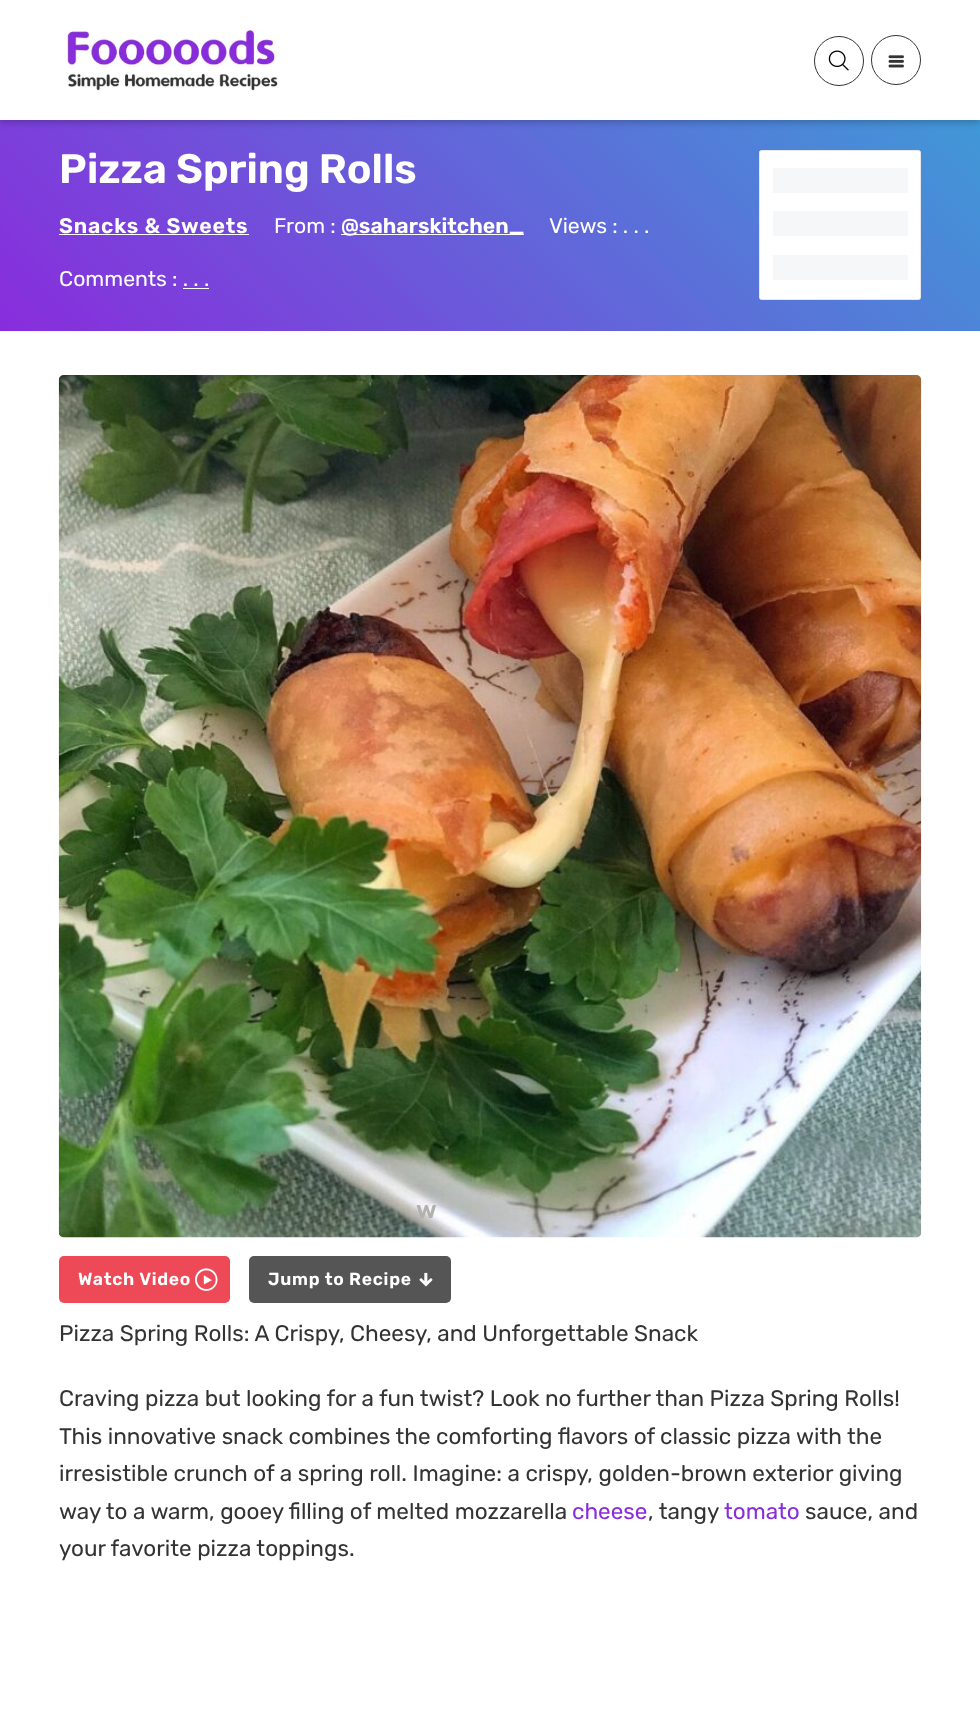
async function draw(canvas) {
  canvas.width = 980
  canvas.height = 1735
  const ctx = canvas.getContext('2d')
  ctx.miterLimit = 4
  ctx.fontKerning = 'normal'
  async function loadImage(src) {
    const img = new Image()
    img.src = src
    await img.decode()
    return img
  }
  let gradient

  ctx.fillStyle = '#fff'
  ctx.fillRect(0, 0, 980, 1735)
  gradient = ctx.createLinearGradient(192, 523, 788, -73)
  gradient.addColorStop(0, '#892cdc')
  gradient.addColorStop(1, '#4098d7')
  ctx.fillStyle = gradient
  ctx.fillRect(0, 120, 980, 211)
  ctx.fillStyle = '#00000033'
  ctx.filter = 'blur(3px)'
  ctx.beginPath()
  ctx.rect(0, 3, 980, 120)
  ctx.fill()
  ctx.filter = 'none'
  ctx.fillStyle = '#fff'
  ctx.fillRect(0, 0, 980, 120)
  ctx.drawImage(await loadImage('image0.png'), 67, 27, 211, 64)
  ctx.beginPath()
  ctx.arc(839, 61, 24.5, 0, 2 * Math.PI)
  ctx.strokeStyle = '#333'
  ctx.stroke()
  ctx.drawImage(await loadImage('image1.png'), 828, 50, 21, 21)
  ctx.beginPath()
  ctx.arc(896, 60, 24.5, 0, 2 * Math.PI)
  ctx.stroke()
  ctx.drawImage(await loadImage('image2.png'), 888, 55, 16, 13)
  ctx.font = '600 41.25px Rubik'
  ctx.fillText('Pizza Spring Rolls', 59, 183)
  ctx.letterSpacing = '0.8px'
  ctx.font = '600 21.25px Rubik'
  ctx.fillText('Snacks & Sweets', 59, 233)
  ctx.fillRect(59, 234, 190, 1)
  ctx.letterSpacing = '0px'
  ctx.font = '21.25px Rubik'
  ctx.fillText('From :', 274, 233)
  ctx.fillRect(341, 234, 183, 1)
  ctx.font = '600 21.25px Rubik'
  ctx.fillText('@saharskitchen_', 341, 233)
  ctx.font = '21.25px Rubik'
  ctx.fillText('Views : . . .', 549, 233)
  ctx.fillText('Comments : . . .', 59, 286)
  ctx.fillRect(183, 288, 26, 1)
  ctx.beginPath()
  ctx.roundRect(759.5, 150.5, 161, 149, 2)
  ctx.fill()
  ctx.strokeStyle = '#e8e8e8'
  ctx.stroke()
  ctx.fillStyle = '#f6f7f8'
  ctx.fillRect(773, 168, 135, 25)
  ctx.fillRect(773, 211, 135, 25)
  ctx.fillRect(773, 255, 135, 25)
  ctx.drawImage(await loadImage('image3.png'), 58, 375, 864, 863)
  ctx.font = '600 25px Rubik'
  ctx.fillStyle = '#b1b2ae'
  ctx.fillText('w', 416, 1218)
  ctx.fillStyle = '#ed4956'
  ctx.beginPath()
  ctx.roundRect(59, 1256, 171, 47, 5)
  ctx.fill()
  ctx.letterSpacing = '0.75px'
  ctx.font = '600 17.5px Rubik'
  ctx.fillStyle = '#fff'
  ctx.fillText('Watch Video', 78, 1285)
  ctx.drawImage(await loadImage('image4.png'), 195, 1268, 23, 23)
  ctx.fillStyle = '#555'
  ctx.beginPath()
  ctx.roundRect(249, 1256, 202, 47, 5)
  ctx.fill()
  ctx.fillStyle = '#fff'
  ctx.fillText('Jump to Recipe', 268, 1285)
  ctx.drawImage(await loadImage('image5.png'), 419, 1272, 14, 15)
  ctx.letterSpacing = '0px'
  ctx.font = '22.5px Rubik'
  ctx.fillStyle = '#333'
  ctx.fillText('Pizza Spring Rolls: A Crispy, Cheesy, and Unforgettable Snack', 59, 1341)
  ctx.fillText('Craving pizza but looking for a fun twist? Look no further than Pizza Spring Rolls!', 59, 1406)
  ctx.fillText('This innovative snack combines the comforting flavors of classic pizza with the', 59, 1444)
  ctx.fillText('irresistible crunch of a spring roll. Imagine: a crispy, golden-brown exterior giving', 59, 1481)
  ctx.fillText('way to a warm, gooey filling of melted mozzarella', 59, 1519)
  ctx.fillStyle = '#892cdc'
  ctx.fillText('cheese', 572, 1519)
  ctx.fillStyle = '#333'
  ctx.fillText(', tangy', 648, 1519)
  ctx.fillStyle = '#892cdc'
  ctx.fillText('tomato', 724, 1519)
  ctx.fillStyle = '#333'
  ctx.fillText('sauce, and', 805, 1519)
  ctx.fillText('your favorite pizza toppings.', 59, 1556)
}

draw(document.querySelector('canvas'))
